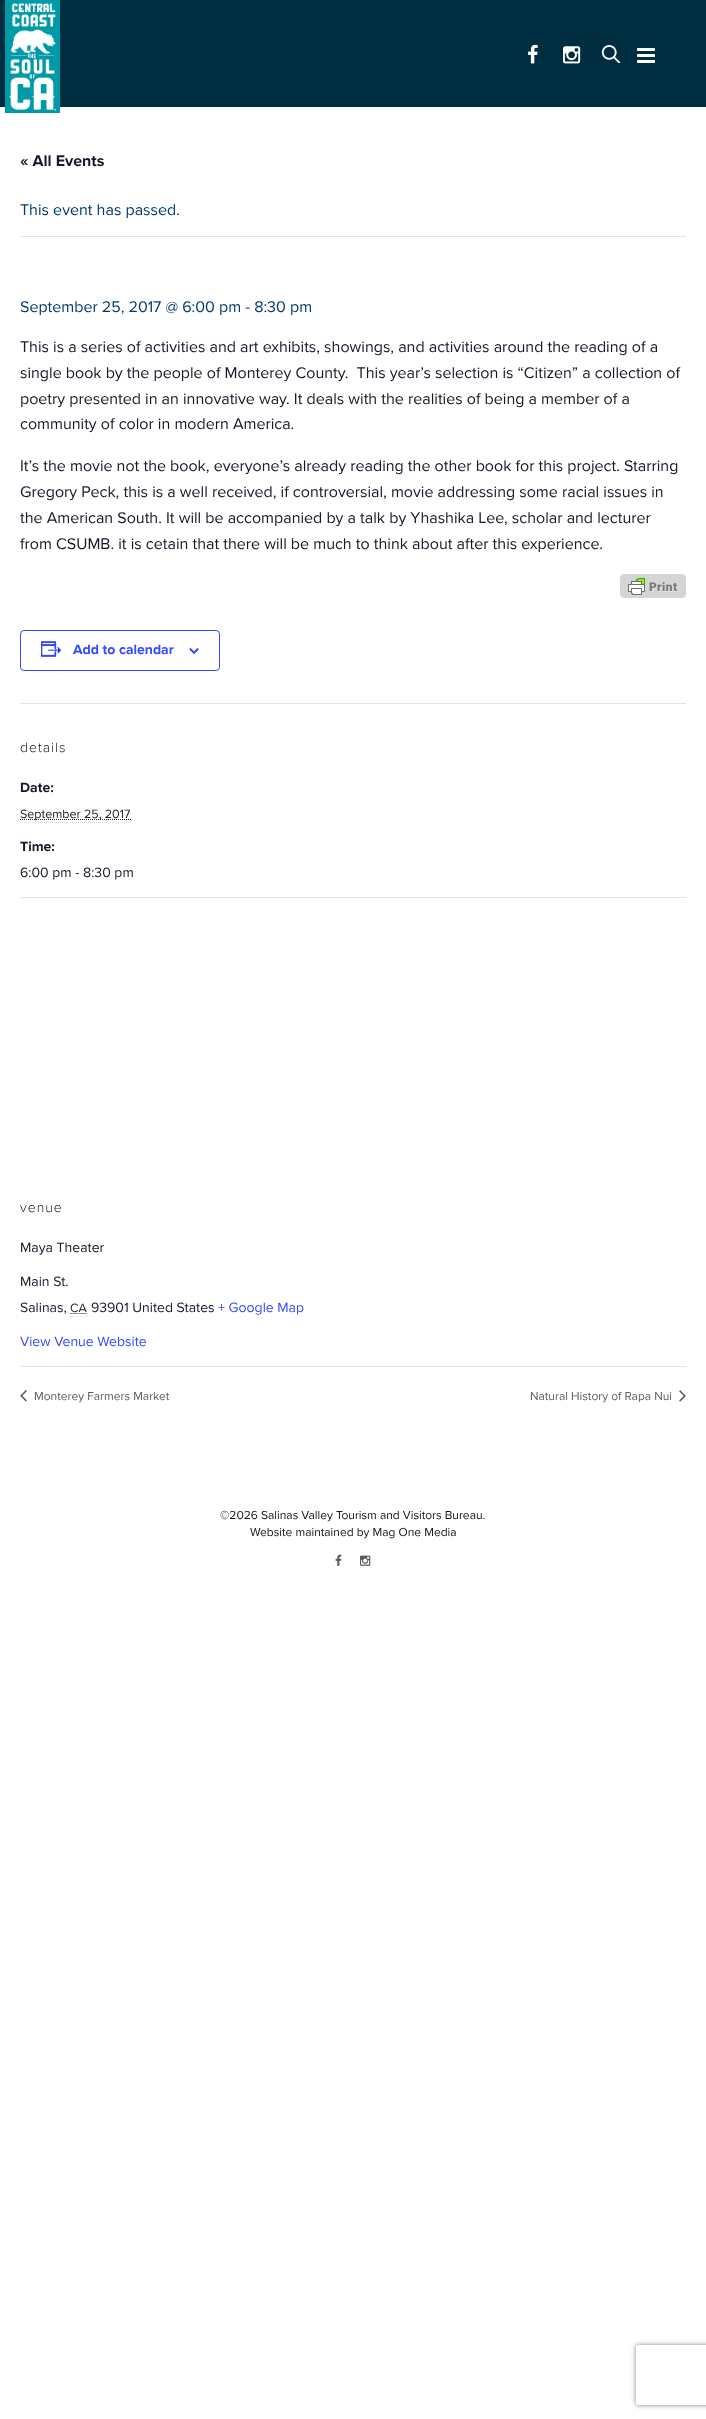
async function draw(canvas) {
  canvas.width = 706
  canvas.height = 2419
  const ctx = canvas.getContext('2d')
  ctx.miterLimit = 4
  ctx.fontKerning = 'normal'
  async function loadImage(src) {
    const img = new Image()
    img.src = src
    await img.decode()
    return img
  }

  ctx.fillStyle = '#fff'
  ctx.fillRect(0, 0, 706, 2419)
  ctx.fillStyle = '#002e41'
  ctx.fillRect(0, 0, 706, 106)
  ctx.fillStyle = '#012c3e'
  ctx.fillRect(0, 106, 706, 1)
  ctx.drawImage(await loadImage('image0.png'), 5, 0, 55, 113)
  ctx.drawImage(await loadImage('image1.png'), 528, 44, 10, 20)
  ctx.drawImage(await loadImage('image2.png'), 563, 46, 18, 18)
  ctx.drawImage(await loadImage('image3.png'), 601, 45, 20, 18)
  ctx.drawImage(await loadImage('image4.png'), 637, 48, 18, 15)
  ctx.font = 'bold 16px Proxima Nova'
  ctx.fillStyle = '#141827'
  ctx.fillText('« All Events', 20, 166)
  ctx.fillStyle = '#e4e4e4'
  ctx.fillRect(20, 236, 666, 1)
  ctx.font = '16px Proxima Nova'
  ctx.fillStyle = '#003b6e'
  ctx.fillText('This event has passed.', 20, 215)
  ctx.fillText('September 25, 2017 @ 6:00 pm - 8:30 pm', 20, 312)
  ctx.fillStyle = '#141827'
  ctx.fillText('This is a series of activities and art exhibits, showings, and activities around the reading of a', 20, 352)
  ctx.fillText('single book by the people of Monterey County.  This year’s selection is “Citizen” a collection of', 20, 378)
  ctx.fillText('poetry presented in an innovative way. It deals with the realities of being a member of a', 20, 404)
  ctx.fillText('community of color in modern America.', 20, 429)
  ctx.fillText('It’s the movie not the book, everyone’s already reading the other book for this project. Starring', 20, 471)
  ctx.fillText('Gregory Peck, this is a well received, if controversial, movie addressing some racial issues in', 20, 497)
  ctx.fillText('the American South. It will be accompanied by a talk by Yhashika Lee, scholar and lecturer', 20, 523)
  ctx.fillText('from CSUMB. it is cetain that there will be much to think about after this experience.', 20, 549)
  ctx.drawImage(await loadImage('image5.png'), 620, 574, 66, 24)
  ctx.beginPath()
  ctx.roundRect(20.5, 630.5, 199, 40, 3.5)
  ctx.strokeStyle = '#334aff'
  ctx.stroke()
  ctx.drawImage(await loadImage('image6.png'), 41, 641, 21, 16)
  ctx.font = 'bold 14px Proxima Nova'
  ctx.fillStyle = '#334aff'
  ctx.fillText('Add to calendar', 73, 654)
  ctx.drawImage(await loadImage('image7.png'), 189, 648, 10, 6)
  ctx.fillStyle = '#e4e4e4'
  ctx.fillRect(20, 703, 666, 1)
  ctx.letterSpacing = '1px'
  ctx.font = '300 14px Proxima Nova'
  ctx.fillStyle = '#141827'
  ctx.fillText('details', 20, 752)
  ctx.letterSpacing = '0px'
  ctx.font = 'bold 14px Proxima Nova'
  ctx.fillText('Date:', 20, 792)
  ctx.beginPath()
  ctx.moveTo(20, 819.5)
  ctx.lineTo(131.5, 819.5)
  ctx.strokeStyle = '#222'
  ctx.setLineDash([1, 1])
  ctx.stroke()
  ctx.font = '12.5px Proxima Nova'
  ctx.fillStyle = '#222'
  ctx.fillText('September 25, 2017', 20, 818)
  ctx.beginPath()
  ctx.moveTo(20, 822.5)
  ctx.lineTo(131, 822.5)
  ctx.strokeStyle = '#ddd'
  ctx.stroke()
  ctx.font = 'bold 14px Proxima Nova'
  ctx.fillStyle = '#141827'
  ctx.fillText('Time:', 20, 851)
  ctx.font = '14px Proxima Nova'
  ctx.fillText('6:00 pm - 8:30 pm', 20, 877)
  ctx.fillStyle = '#e4e4e4'
  ctx.fillRect(20, 897, 666, 1)
  ctx.letterSpacing = '1px'
  ctx.font = '300 14px Proxima Nova'
  ctx.fillStyle = '#141827'
  ctx.fillText('venue', 20, 1212)
  ctx.letterSpacing = '0px'
  ctx.font = '14px Proxima Nova'
  ctx.fillText('Maya Theater', 20, 1252)
  ctx.fillText('Main St.', 20, 1286)
  ctx.fillText('Salinas,', 20, 1312)
  ctx.font = '12.5px Proxima Nova'
  ctx.fillStyle = '#222'
  ctx.fillText('CA', 70, 1312)
  ctx.beginPath()
  ctx.moveTo(70, 1316.5)
  ctx.lineTo(87, 1316.5)
  ctx.stroke()
  ctx.beginPath()
  ctx.moveTo(70.5, 1313.5)
  ctx.lineTo(87, 1313.5)
  ctx.strokeStyle = '#222'
  ctx.stroke()
  ctx.font = '14px Proxima Nova'
  ctx.fillStyle = '#141827'
  ctx.fillText('93901 United States', 91, 1312)
  ctx.fillStyle = '#334aff'
  ctx.fillText('+ Google Map', 218, 1312)
  ctx.fillText('View Venue Website', 20, 1346)
  ctx.fillStyle = '#e4e4e4'
  ctx.fillRect(20, 1366, 666, 1)
  ctx.drawImage(await loadImage('image8.png'), 20, 1390, 7, 12)
  ctx.font = '12px Proxima Nova'
  ctx.fillStyle = '#5d5d5d'
  ctx.fillText('Monterey Farmers Market', 34, 1400)
  ctx.fillText('Natural History of Rapa Nui', 530, 1400)
  ctx.drawImage(await loadImage('image9.png'), 679, 1390, 7, 12)
  ctx.fillStyle = '#131219'
  ctx.fillText('©2026 Salinas Valley Tourism and Visitors Bureau.', 220, 1519)
  ctx.fillText('Website maintained by Mag One Media', 250, 1536)
  ctx.drawImage(await loadImage('image10.png'), 335, 1554, 7, 12)
  ctx.drawImage(await loadImage('image11.png'), 360, 1555, 11, 11)
  ctx.save()
  ctx.beginPath()
  ctx.moveTo(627, 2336)
  ctx.lineTo(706, 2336)
  ctx.lineTo(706, 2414)
  ctx.lineTo(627, 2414)
  ctx.closePath()
  ctx.moveTo(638, 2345)
  ctx.lineTo(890, 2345)
  ctx.bezierCurveTo(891, 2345, 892, 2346, 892, 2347)
  ctx.lineTo(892, 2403)
  ctx.bezierCurveTo(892, 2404, 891, 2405, 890, 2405)
  ctx.lineTo(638, 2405)
  ctx.bezierCurveTo(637, 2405, 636, 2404, 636, 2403)
  ctx.lineTo(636, 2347)
  ctx.bezierCurveTo(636, 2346, 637, 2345, 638, 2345)
  ctx.closePath()
  ctx.clip('evenodd')
  ctx.fillStyle = '#808080'
  ctx.filter = 'blur(2.5px)'
  ctx.beginPath()
  ctx.roundRect(636, 2345, 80, 60, 2)
  ctx.fill()
  ctx.filter = 'none'
  ctx.restore()
}

draw(document.querySelector('canvas'))
